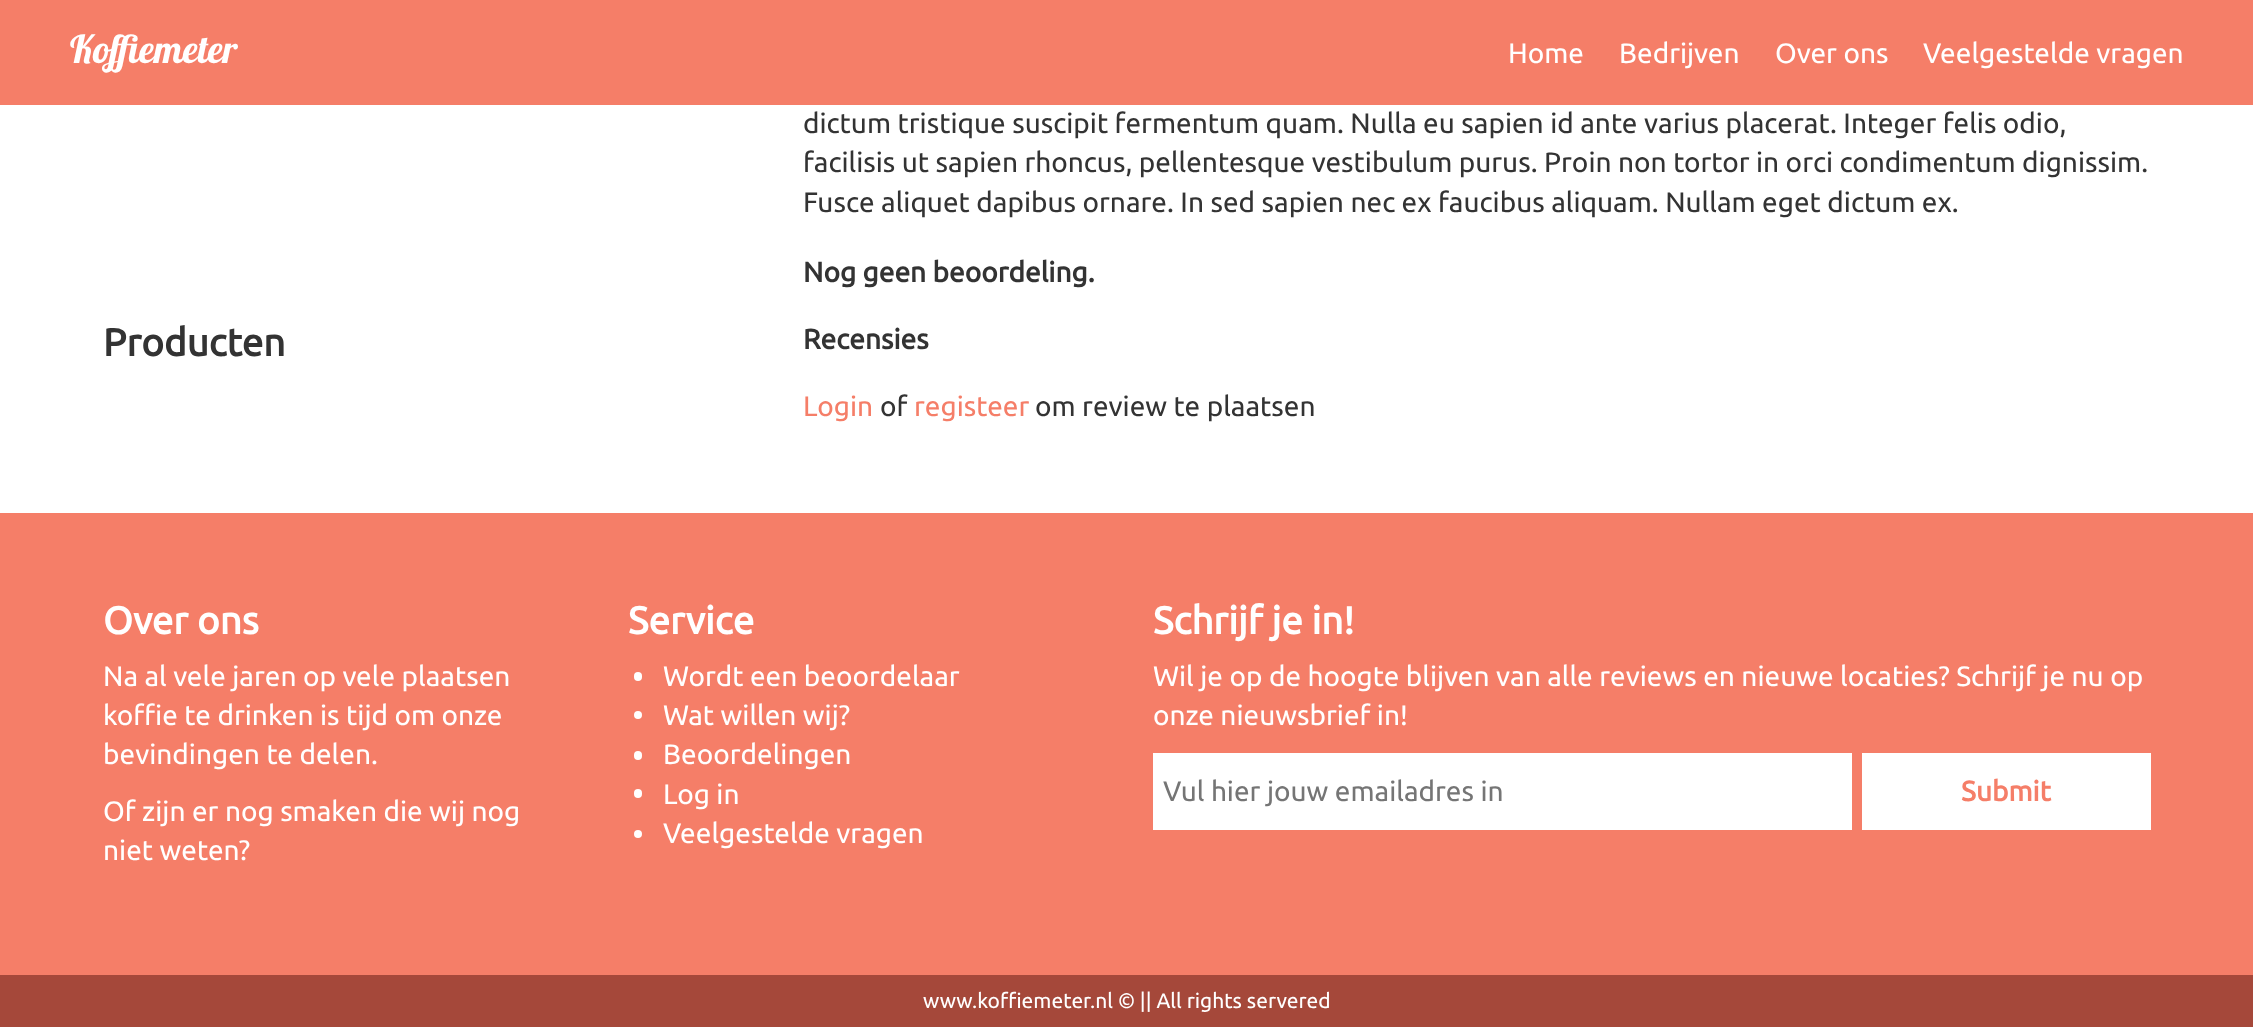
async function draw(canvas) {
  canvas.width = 2253
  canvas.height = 1027
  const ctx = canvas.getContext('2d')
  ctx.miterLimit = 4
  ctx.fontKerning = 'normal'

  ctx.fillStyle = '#fff'
  ctx.fillRect(0, 0, 2253, 1027)
  ctx.fillStyle = '#f57e68'
  ctx.fillRect(0, 0, 2253, 105)
  ctx.font = '38.5px Lobster'
  ctx.fillStyle = '#fff'
  ctx.fillText('Koffiemeter', 70, 63)
  ctx.font = '28px Ubuntu'
  ctx.fillText('Home', 1508, 63)
  ctx.fillText('Bedrijven', 1619, 63)
  ctx.fillText('Over ons', 1775, 63)
  ctx.fillText('Veelgestelde vragen', 1923, 63)
  ctx.fillStyle = '#333'
  ctx.fillText('dictum tristique suscipit fermentum quam. Nulla eu sapien id ante varius placerat. Integer felis odio,', 803, 133)
  ctx.fillText('facilisis ut sapien rhoncus, pellentesque vestibulum purus. Proin non tortor in orci condimentum dignissim.', 803, 172)
  ctx.fillText('Fusce aliquet dapibus ornare. In sed sapien nec ex faucibus aliquam. Nullam eget dictum ex.', 803, 212)
  ctx.font = 'bold 28px Ubuntu'
  ctx.fillText('Nog geen beoordeling.', 803, 282)
  ctx.font = 'bold 38.5px Ubuntu'
  ctx.fillText('Producten', 103, 356)
  ctx.font = 'bold 28px Ubuntu'
  ctx.fillText('Recensies', 803, 349)
  ctx.font = '28px Ubuntu'
  ctx.fillStyle = '#f57e68'
  ctx.fillText('Login', 803, 416)
  ctx.fillStyle = '#333'
  ctx.fillText('of', 880, 416)
  ctx.fillStyle = '#f57e68'
  ctx.fillText('registeer', 914, 416)
  ctx.fillStyle = '#333'
  ctx.fillText('om review te plaatsen', 1035, 416)
  ctx.fillStyle = '#f57e68'
  ctx.fillRect(0, 513, 2253, 462)
  ctx.font = 'bold 38.5px Ubuntu'
  ctx.fillStyle = '#fff'
  ctx.fillText('Over ons', 103, 634)
  ctx.font = '28px Ubuntu'
  ctx.fillText('Na al vele jaren op vele plaatsen', 103, 686)
  ctx.fillText('koffie te drinken is tijd om onze', 103, 725)
  ctx.fillText('bevindingen te delen.', 103, 764)
  ctx.fillText('Of zijn er nog smaken die wij nog', 103, 821)
  ctx.fillText('niet weten?', 103, 860)
  ctx.font = 'bold 38.5px Ubuntu'
  ctx.fillText('Service', 628, 634)
  ctx.beginPath()
  ctx.roundRect(634, 672, 8, 9, 4)
  ctx.fill()
  ctx.font = '28px Ubuntu'
  ctx.fillText('Wordt een beoordelaar', 663, 686)
  ctx.beginPath()
  ctx.arc(638, 715, 4, 0, 2 * Math.PI)
  ctx.fill()
  ctx.fillText('Wat willen wij?', 663, 725)
  ctx.beginPath()
  ctx.roundRect(634, 751, 8, 9, 4)
  ctx.fill()
  ctx.fillText('Beoordelingen', 663, 764)
  ctx.beginPath()
  ctx.roundRect(634, 789, 8, 9, 4)
  ctx.fill()
  ctx.fillText('Log in', 663, 804)
  ctx.beginPath()
  ctx.arc(638, 834, 4, 0, 2 * Math.PI)
  ctx.fill()
  ctx.fillText('Veelgestelde vragen', 663, 843)
  ctx.font = 'bold 38.5px Ubuntu'
  ctx.fillText('Schrijf je in!', 1153, 634)
  ctx.font = '28px Ubuntu'
  ctx.fillText('Wil je op de hoogte blijven van alle reviews en nieuwe locaties? Schrijf je nu op', 1153, 686)
  ctx.fillText('onze nieuwsbrief in!', 1153, 725)
  ctx.fillRect(1153, 753, 699, 77)
  ctx.fillStyle = '#757575'
  ctx.fillText('Vul hier jouw emailadres in', 1163, 801)
  ctx.fillStyle = '#fff'
  ctx.fillRect(1862, 753, 289, 77)
  ctx.font = 'bold 28px Ubuntu'
  ctx.fillStyle = '#f57e68'
  ctx.fillText('Submit', 1961, 801)
  ctx.fillStyle = '#a5483a'
  ctx.fillRect(0, 975, 2253, 52)
  ctx.font = '21px Ubuntu'
  ctx.fillStyle = '#fff'
  ctx.fillText('www.koffiemeter.nl © || All rights servered', 923, 1008)
}

draw(document.querySelector('canvas'))
